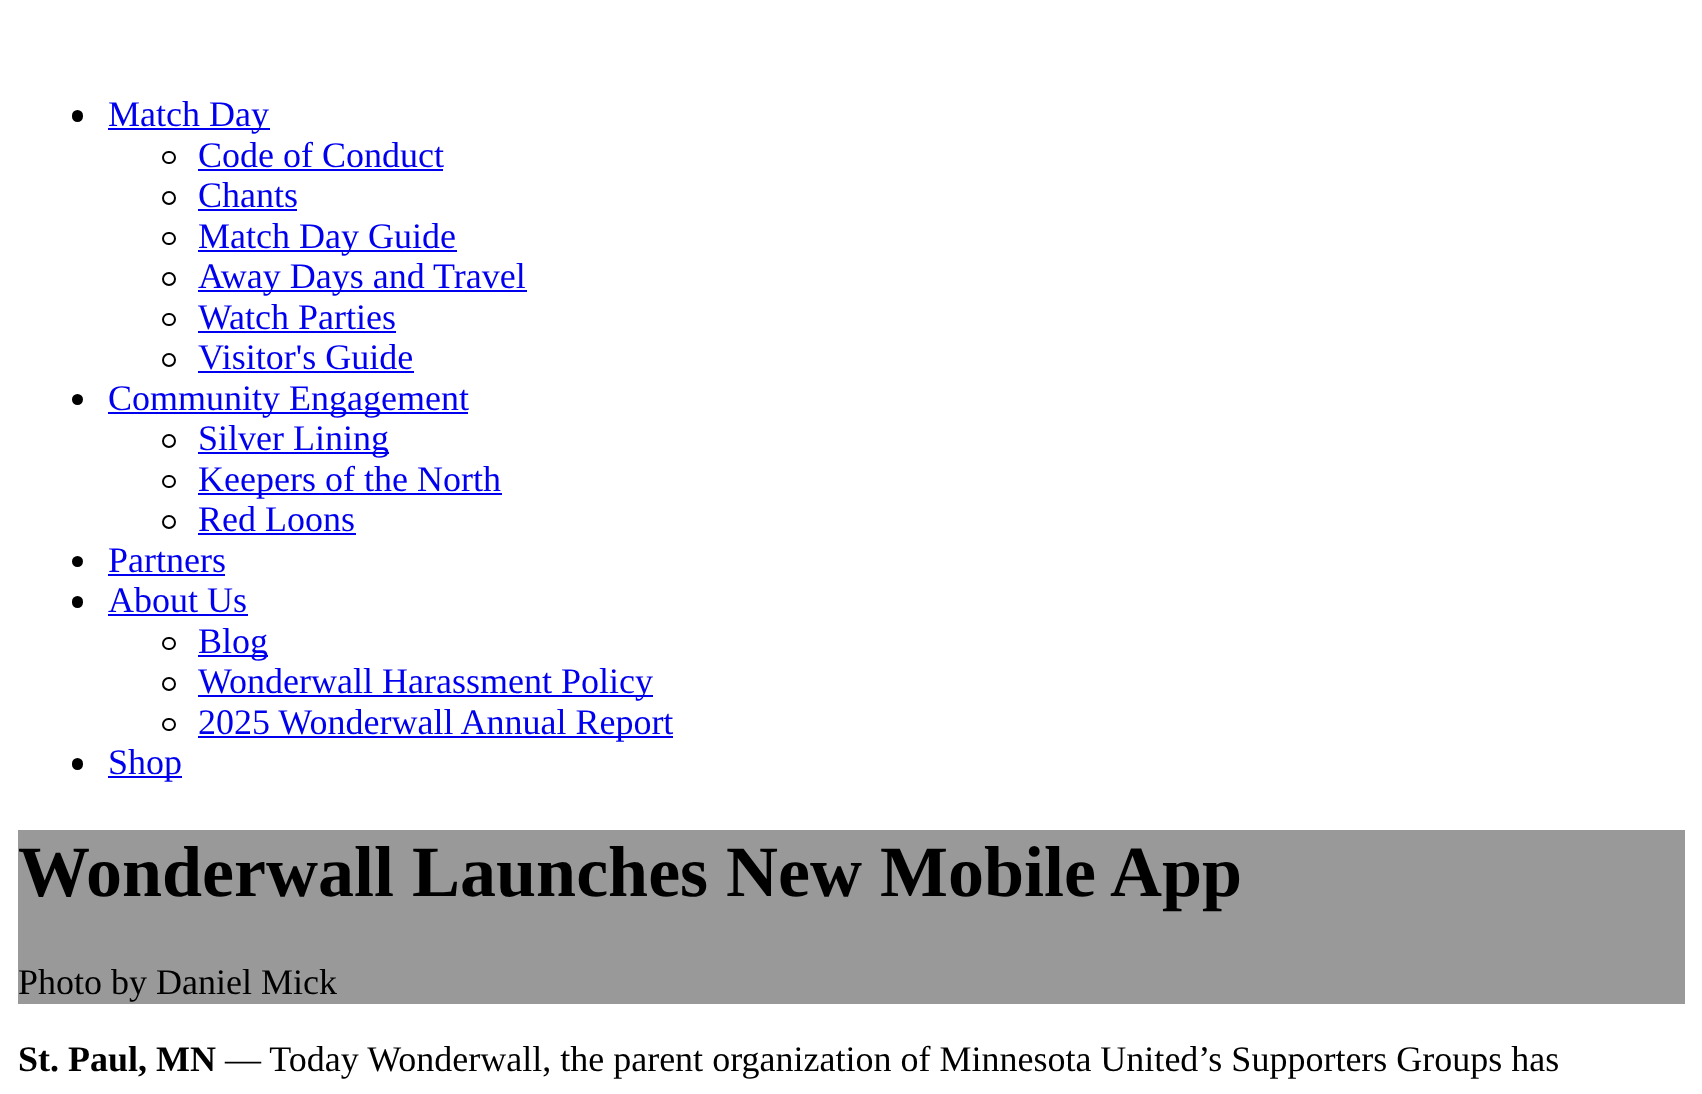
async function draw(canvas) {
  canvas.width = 1702
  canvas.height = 1094
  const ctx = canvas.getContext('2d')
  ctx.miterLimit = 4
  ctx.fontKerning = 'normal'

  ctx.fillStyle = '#fff'
  ctx.fillRect(0, 0, 1702, 1094)
  ctx.fillStyle = '#000'
  ctx.beginPath()
  ctx.roundRect(72, 110, 11, 12, 5.5)
  ctx.fill()
  ctx.fillStyle = '#00e'
  ctx.fillRect(108, 128, 162, 2)
  ctx.font = '36px Liberation Serif'
  ctx.fillText('Match Day', 108, 126)
  ctx.beginPath()
  ctx.roundRect(163, 152, 12, 11, 5.5)
  ctx.strokeStyle = '#000'
  ctx.lineWidth = 2
  ctx.stroke()
  ctx.fillText('Code of Conduct', 198, 167)
  ctx.fillRect(198, 169, 245, 2)
  ctx.beginPath()
  ctx.arc(169, 198, 6, 0, 2 * Math.PI)
  ctx.stroke()
  ctx.fillText('Chants', 198, 207)
  ctx.fillRect(198, 209, 99, 2)
  ctx.beginPath()
  ctx.roundRect(163, 233, 12, 11, 5.5)
  ctx.stroke()
  ctx.fillRect(198, 250, 259, 2)
  ctx.fillText('Match Day Guide', 198, 248)
  ctx.beginPath()
  ctx.arc(169, 279, 6, 0, 2 * Math.PI)
  ctx.stroke()
  ctx.fillRect(198, 290, 329, 2)
  ctx.fillText('Away Days and Travel', 198, 288)
  ctx.beginPath()
  ctx.roundRect(163, 314, 12, 11, 5.5)
  ctx.stroke()
  ctx.fillText('Watch Parties', 198, 329)
  ctx.fillRect(198, 331, 198, 2)
  ctx.beginPath()
  ctx.arc(169, 360, 6, 0, 2 * Math.PI)
  ctx.stroke()
  ctx.fillText('Visitor\'s Guide', 198, 369)
  ctx.fillRect(198, 371, 216, 2)
  ctx.fillStyle = '#000'
  ctx.beginPath()
  ctx.arc(77.5, 399.5, 5.5, 0, 2 * Math.PI)
  ctx.fill()
  ctx.fillStyle = '#00e'
  ctx.fillRect(108, 412, 360, 2)
  ctx.fillText('Community Engagement', 108, 410)
  ctx.beginPath()
  ctx.arc(169, 441, 6, 0, 2 * Math.PI)
  ctx.stroke()
  ctx.fillRect(198, 452, 191, 2)
  ctx.fillText('Silver Lining', 198, 450)
  ctx.beginPath()
  ctx.roundRect(163, 476, 12, 11, 5.5)
  ctx.stroke()
  ctx.fillRect(198, 493, 304, 2)
  ctx.fillText('Keepers of the North', 198, 491)
  ctx.beginPath()
  ctx.arc(169, 522, 6, 0, 2 * Math.PI)
  ctx.stroke()
  ctx.fillText('Red Loons', 198, 531)
  ctx.fillRect(198, 533, 158, 2)
  ctx.fillStyle = '#000'
  ctx.beginPath()
  ctx.arc(77.5, 561.5, 5.5, 0, 2 * Math.PI)
  ctx.fill()
  ctx.fillStyle = '#00e'
  ctx.fillText('Partners', 108, 572)
  ctx.fillRect(108, 574, 117, 2)
  ctx.fillStyle = '#000'
  ctx.beginPath()
  ctx.roundRect(72, 596, 11, 12, 5.5)
  ctx.fill()
  ctx.fillStyle = '#00e'
  ctx.fillText('About Us', 108, 612)
  ctx.fillRect(108, 614, 140, 2)
  ctx.beginPath()
  ctx.roundRect(163, 638, 12, 11, 5.5)
  ctx.stroke()
  ctx.fillRect(198, 655, 70, 2)
  ctx.fillText('Blog', 198, 653)
  ctx.beginPath()
  ctx.arc(169, 684, 6, 0, 2 * Math.PI)
  ctx.stroke()
  ctx.fillRect(198, 695, 455, 2)
  ctx.fillText('Wonderwall Harassment Policy', 198, 693)
  ctx.beginPath()
  ctx.roundRect(163, 719, 12, 11, 5.5)
  ctx.stroke()
  ctx.fillRect(198, 736, 475, 2)
  ctx.fillText('2025 Wonderwall Annual Report', 198, 734)
  ctx.fillStyle = '#000'
  ctx.beginPath()
  ctx.roundRect(72, 758, 11, 12, 5.5)
  ctx.fill()
  ctx.fillStyle = '#00e'
  ctx.fillRect(108, 776, 74, 2)
  ctx.fillText('Shop', 108, 774)
  ctx.fillStyle = '#999'
  ctx.fillRect(18, 830, 1667, 174)
  ctx.font = 'bold 72px Liberation Serif'
  ctx.fillStyle = '#000'
  ctx.fillText('Wonderwall Launches New Mobile App', 18, 896)
  ctx.font = '36px Liberation Serif'
  ctx.fillText('Photo by Daniel Mick', 18, 994)
  ctx.font = 'bold 36px Liberation Serif'
  ctx.fillText('St. Paul, MN', 18, 1071)
  ctx.font = '36px Liberation Serif'
  ctx.fillText('— Today Wonderwall, the parent organization of Minnesota United’s Supporters Groups has', 225, 1071)
}

draw(document.querySelector('canvas'))
